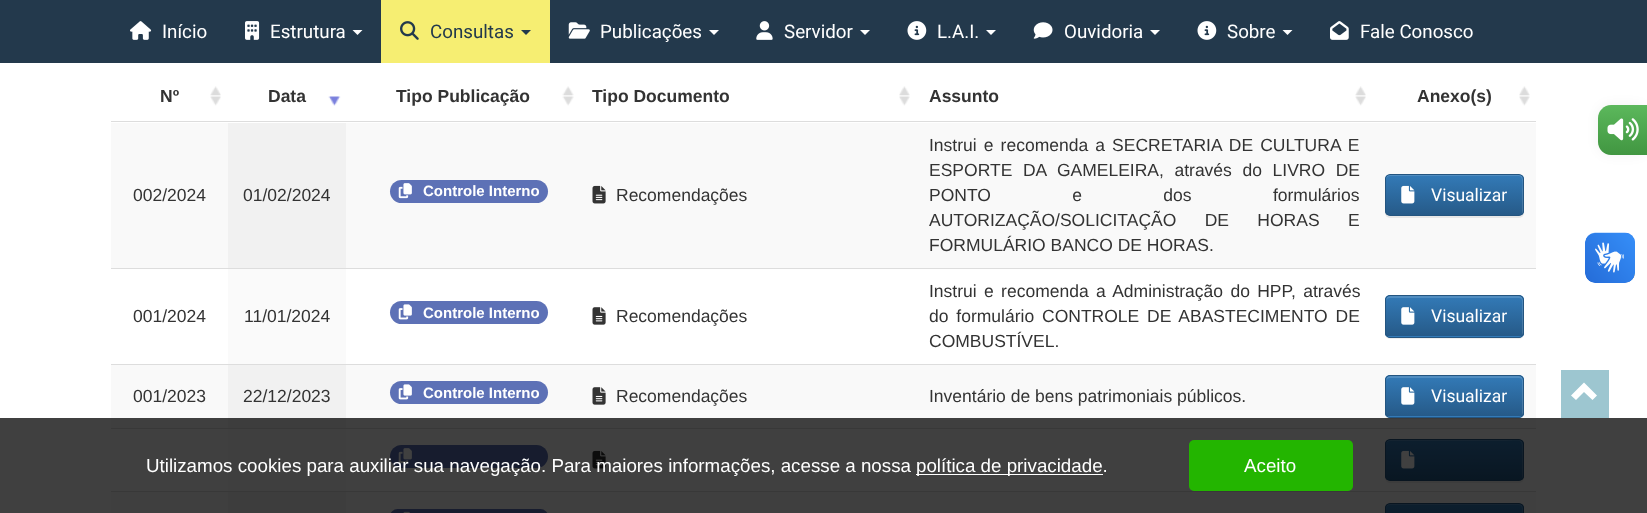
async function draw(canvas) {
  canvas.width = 1647
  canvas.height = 513
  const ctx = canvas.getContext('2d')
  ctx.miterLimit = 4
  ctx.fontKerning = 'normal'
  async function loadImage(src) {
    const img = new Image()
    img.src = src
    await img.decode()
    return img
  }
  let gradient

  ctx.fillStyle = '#fff'
  ctx.fillRect(0, 0, 1647, 513)
  ctx.fillStyle = '#23394c'
  ctx.fillRect(0, 0, 1647, 63)
  ctx.drawImage(await loadImage('image0.png'), 130, 21, 22, 19)
  ctx.font = '18.75px Roboto'
  ctx.fillStyle = '#fff'
  ctx.fillText('Início', 162, 38)
  ctx.drawImage(await loadImage('image1.png'), 245, 21, 15, 19)
  ctx.fillText('Estrutura', 270, 38)
  ctx.beginPath()
  ctx.moveTo(352.5, 30)
  ctx.lineTo(362.5, 30)
  ctx.lineTo(357.5, 35)
  ctx.closePath()
  ctx.fill()
  ctx.fillStyle = '#f6ee72'
  ctx.fillRect(381, 0, 169, 63)
  ctx.drawImage(await loadImage('image2.png'), 400, 21, 19, 19)
  ctx.fillStyle = '#22394c'
  ctx.fillText('Consultas', 430, 38)
  ctx.beginPath()
  ctx.moveTo(521, 30)
  ctx.lineTo(531, 30)
  ctx.lineTo(526, 35)
  ctx.closePath()
  ctx.fill()
  ctx.drawImage(await loadImage('image3.png'), 568, 22, 22, 17)
  ctx.fillStyle = '#fff'
  ctx.fillText('Publicações', 600, 38)
  ctx.beginPath()
  ctx.moveTo(709, 30)
  ctx.lineTo(719, 30)
  ctx.lineTo(714, 35)
  ctx.closePath()
  ctx.fill()
  ctx.drawImage(await loadImage('image4.png'), 756, 21, 17, 19)
  ctx.fillText('Servidor', 784, 38)
  ctx.beginPath()
  ctx.moveTo(860, 30)
  ctx.lineTo(870, 30)
  ctx.lineTo(865, 35)
  ctx.closePath()
  ctx.fill()
  ctx.drawImage(await loadImage('image5.png'), 907, 21, 20, 19)
  ctx.fillText('L.A.I.', 937, 38)
  ctx.beginPath()
  ctx.moveTo(986, 30)
  ctx.lineTo(996, 30)
  ctx.lineTo(991, 35)
  ctx.closePath()
  ctx.fill()
  ctx.drawImage(await loadImage('image6.png'), 1033, 22, 20, 17)
  ctx.fillText('Ouvidoria', 1064, 38)
  ctx.beginPath()
  ctx.moveTo(1150, 30)
  ctx.lineTo(1160, 30)
  ctx.lineTo(1155, 35)
  ctx.closePath()
  ctx.fill()
  ctx.drawImage(await loadImage('image5.png'), 1197, 21, 20, 19)
  ctx.fillText('Sobre', 1227, 38)
  ctx.beginPath()
  ctx.moveTo(1282.5, 30)
  ctx.lineTo(1292.5, 30)
  ctx.lineTo(1287.5, 35)
  ctx.closePath()
  ctx.fill()
  ctx.drawImage(await loadImage('image7.png'), 1330, 21, 19, 19)
  ctx.fillText('Fale Conosco', 1360, 38)
  ctx.drawImage(await loadImage('image8.png'), 210, 86, 11, 20)
  ctx.fillStyle = '#ddd'
  ctx.fillRect(111, 121, 1425, 1)
  ctx.font = 'bold 17.5px Liberation Sans'
  ctx.fillStyle = '#333'
  ctx.fillText('Nº', 160, 102)
  ctx.drawImage(await loadImage('image9.png'), 328, 96, 13, 10)
  ctx.fillText('Data', 268, 102)
  ctx.drawImage(await loadImage('image10.png'), 562, 86, 12, 20)
  ctx.fillText('Tipo Publicação', 396, 102)
  ctx.drawImage(await loadImage('image11.png'), 899, 86, 11, 20)
  ctx.fillText('Tipo Documento', 592, 102)
  ctx.drawImage(await loadImage('image8.png'), 1355, 86, 11, 20)
  ctx.fillText('Assunto', 929, 102)
  ctx.drawImage(await loadImage('image12.png'), 1519, 86, 11, 20)
  ctx.fillText('Anexo(s)', 1417, 102)
  ctx.fillStyle = '#f9f9f9'
  ctx.fillRect(111, 123, 1425, 145)
  ctx.font = '17.5px Liberation Sans'
  ctx.fillStyle = '#333'
  ctx.fillText('002/2024', 133, 201)
  ctx.fillStyle = '#f1f1f1'
  ctx.fillRect(228, 123, 118, 145)
  ctx.fillStyle = '#333'
  ctx.fillText('01/02/2024', 243, 201)
  ctx.fillStyle = '#5d71b6'
  ctx.beginPath()
  ctx.roundRect(390, 180, 158, 23, 11.5)
  ctx.fill()
  ctx.drawImage(await loadImage('image13.png'), 398, 183, 14, 16)
  ctx.font = 'bold 15px Liberation Sans'
  ctx.fillStyle = '#fff'
  ctx.fillText('Controle Interno', 423, 196)
  ctx.drawImage(await loadImage('image14.png'), 592, 185, 14, 19)
  ctx.font = '17.5px Liberation Sans'
  ctx.fillStyle = '#333'
  ctx.fillText('Recomendações', 616, 201)
  ctx.wordSpacing = '2.25px'
  ctx.fillText('Instrui e recomenda a SECRETARIA DE CULTURA E', 929, 151)
  ctx.wordSpacing = '5.75px'
  ctx.fillText('ESPORTE DA GAMELEIRA, através do LIVRO DE', 929, 176)
  ctx.wordSpacing = '76.5px'
  ctx.fillText('PONTO e dos formulários', 929, 201)
  ctx.wordSpacing = '23.5px'
  ctx.fillText('AUTORIZAÇÃO/SOLICITAÇÃO DE HORAS E', 929, 226)
  ctx.wordSpacing = '0px'
  ctx.fillText('FORMULÁRIO BANCO DE HORAS.', 929, 251)
  ctx.fillStyle = '#00000012'
  ctx.filter = 'blur(0.5px)'
  ctx.beginPath()
  ctx.roundRect(1385, 175, 139, 43, 5)
  ctx.fill()
  ctx.filter = 'none'
  ctx.save()
  ctx.beginPath()
  ctx.roundRect(1385, 174, 139, 42, 5)
  ctx.clip()
  gradient = ctx.createLinearGradient(1454, 175, 1454, 215)
  gradient.addColorStop(0, '#337ab7')
  gradient.addColorStop(1, '#265a88')
  ctx.fillStyle = gradient
  ctx.fillRect(1385, 175, 139, 40)
  ctx.restore()
  ctx.fillStyle = '#ffffff26'
  ctx.beginPath()
  ctx.moveTo(1390, 176)
  ctx.lineTo(1519, 176)
  ctx.bezierCurveTo(1524, 176, 1522, 189, 1522, 191)
  ctx.lineTo(1522, 214)
  ctx.bezierCurveTo(1523, 213, 1523, 212, 1523, 211)
  ctx.lineTo(1523, 179)
  ctx.bezierCurveTo(1523, 177, 1521, 175, 1519, 175)
  ctx.lineTo(1390, 175)
  ctx.bezierCurveTo(1388, 175, 1386, 177, 1386, 179)
  ctx.lineTo(1386, 180)
  ctx.bezierCurveTo(1386, 178, 1388, 176, 1390, 176)
  ctx.closePath()
  ctx.fill()
  ctx.beginPath()
  ctx.roundRect(1385.5, 174.5, 138, 41, 4.5)
  ctx.strokeStyle = '#245580'
  ctx.stroke()
  ctx.drawImage(await loadImage('image15.png'), 1401, 185, 14, 19)
  ctx.font = '17.5px Roboto'
  ctx.fillStyle = '#fff'
  ctx.fillText('Visualizar', 1431, 201)
  ctx.fillStyle = '#ddd'
  ctx.fillRect(111, 268, 1425, 1)
  ctx.font = '17.5px Liberation Sans'
  ctx.fillStyle = '#333'
  ctx.fillText('001/2024', 133, 322)
  ctx.fillStyle = '#fafafa'
  ctx.fillRect(228, 269, 118, 95)
  ctx.fillStyle = '#333'
  ctx.fillText('11/01/2024', 244, 322)
  ctx.fillStyle = '#5d71b6'
  ctx.beginPath()
  ctx.roundRect(390, 301, 158, 23, 11.5)
  ctx.fill()
  ctx.drawImage(await loadImage('image16.png'), 398, 304, 14, 16)
  ctx.font = 'bold 15px Liberation Sans'
  ctx.fillStyle = '#fff'
  ctx.fillText('Controle Interno', 423, 318)
  ctx.drawImage(await loadImage('image17.png'), 592, 307, 14, 18)
  ctx.font = '17.5px Liberation Sans'
  ctx.fillStyle = '#333'
  ctx.fillText('Recomendações', 616, 322)
  ctx.wordSpacing = '2.5px'
  ctx.fillText('Instrui e recomenda a Administração do HPP, através', 929, 297)
  ctx.wordSpacing = '3px'
  ctx.fillText('do formulário CONTROLE DE ABASTECIMENTO DE', 929, 322)
  ctx.wordSpacing = '0px'
  ctx.fillText('COMBUSTÍVEL.', 929, 347)
  ctx.fillStyle = '#00000012'
  ctx.filter = 'blur(0.5px)'
  ctx.beginPath()
  ctx.roundRect(1385, 296, 139, 43, 5)
  ctx.fill()
  ctx.filter = 'none'
  ctx.fillStyle = '#337ab7'
  ctx.beginPath()
  ctx.roundRect(1385, 295, 139, 43, 5)
  ctx.fill()
  ctx.save()
  ctx.beginPath()
  ctx.roundRect(1385, 295, 139, 43, 5)
  ctx.clip()
  gradient = ctx.createLinearGradient(1454, 296, 1454, 336)
  gradient.addColorStop(0, '#337ab7')
  gradient.addColorStop(1, '#265a88')
  ctx.fillStyle = gradient
  ctx.fillRect(1385, 296, 139, 40)
  ctx.restore()
  ctx.fillStyle = '#ffffff26'
  ctx.beginPath()
  ctx.moveTo(1390, 298)
  ctx.lineTo(1519, 298)
  ctx.bezierCurveTo(1521, 298, 1522, 299, 1522, 301)
  ctx.lineTo(1522, 335)
  ctx.bezierCurveTo(1523, 334, 1523, 333, 1523, 332)
  ctx.lineTo(1523, 300)
  ctx.bezierCurveTo(1523, 298, 1521, 296, 1519, 296)
  ctx.lineTo(1390, 296)
  ctx.bezierCurveTo(1388, 296, 1386, 298, 1386, 300)
  ctx.lineTo(1386, 301)
  ctx.bezierCurveTo(1386, 299, 1388, 298, 1390, 298)
  ctx.closePath()
  ctx.fill()
  ctx.beginPath()
  ctx.roundRect(1385.5, 295.5, 138, 42, 4.5)
  ctx.stroke()
  ctx.drawImage(await loadImage('image18.png'), 1401, 307, 14, 18)
  ctx.font = '17.5px Roboto'
  ctx.fillStyle = '#fff'
  ctx.fillText('Visualizar', 1431, 322)
  ctx.fillStyle = '#f9f9f9'
  ctx.fillRect(111, 365, 1425, 63)
  ctx.fillStyle = '#ddd'
  ctx.fillRect(111, 364, 1425, 1)
  ctx.font = '17.5px Liberation Sans'
  ctx.fillStyle = '#333'
  ctx.fillText('001/2023', 133, 402)
  ctx.fillStyle = '#f1f1f1'
  ctx.fillRect(228, 365, 118, 63)
  ctx.fillStyle = '#333'
  ctx.fillText('22/12/2023', 243, 402)
  ctx.fillStyle = '#5d71b6'
  ctx.beginPath()
  ctx.roundRect(390, 381, 158, 23, 11.5)
  ctx.fill()
  ctx.drawImage(await loadImage('image16.png'), 398, 384, 14, 16)
  ctx.font = 'bold 15px Liberation Sans'
  ctx.fillStyle = '#fff'
  ctx.fillText('Controle Interno', 423, 398)
  ctx.drawImage(await loadImage('image19.png'), 592, 387, 14, 18)
  ctx.font = '17.5px Liberation Sans'
  ctx.fillStyle = '#333'
  ctx.fillText('Recomendações', 616, 402)
  ctx.fillText('Inventário de bens patrimoniais públicos.', 929, 402)
  ctx.fillStyle = '#00000012'
  ctx.filter = 'blur(0.5px)'
  ctx.beginPath()
  ctx.roundRect(1385, 376, 139, 43, 5)
  ctx.fill()
  ctx.filter = 'none'
  ctx.fillStyle = '#337ab7'
  ctx.beginPath()
  ctx.roundRect(1385, 375, 139, 43, 5)
  ctx.fill()
  ctx.save()
  ctx.beginPath()
  ctx.roundRect(1385, 375, 139, 43, 5)
  ctx.clip()
  gradient = ctx.createLinearGradient(1454, 376, 1454, 416)
  gradient.addColorStop(0, '#337ab7')
  gradient.addColorStop(1, '#265a88')
  ctx.fillStyle = gradient
  ctx.fillRect(1385, 376, 139, 40)
  ctx.restore()
  ctx.fillStyle = '#ffffff26'
  ctx.beginPath()
  ctx.moveTo(1390, 378)
  ctx.lineTo(1519, 378)
  ctx.bezierCurveTo(1521, 378, 1522, 379, 1522, 381)
  ctx.lineTo(1522, 415)
  ctx.bezierCurveTo(1523, 414, 1523, 413, 1523, 412)
  ctx.lineTo(1523, 380)
  ctx.bezierCurveTo(1523, 378, 1521, 376, 1519, 376)
  ctx.lineTo(1390, 376)
  ctx.bezierCurveTo(1388, 376, 1386, 378, 1386, 380)
  ctx.lineTo(1386, 381)
  ctx.bezierCurveTo(1386, 379, 1388, 378, 1390, 378)
  ctx.closePath()
  ctx.fill()
  ctx.beginPath()
  ctx.roundRect(1385.5, 375.5, 138, 42, 4.5)
  ctx.stroke()
  ctx.drawImage(await loadImage('image18.png'), 1401, 387, 14, 18)
  ctx.font = '17.5px Roboto'
  ctx.fillStyle = '#fff'
  ctx.fillText('Visualizar', 1431, 402)
  ctx.fillStyle = '#ddd'
  ctx.fillRect(111, 428, 1425, 1)
  ctx.fillStyle = '#fafafa'
  ctx.fillRect(228, 429, 118, 62)
  ctx.fillStyle = '#5d71b6'
  ctx.beginPath()
  ctx.roundRect(390, 445, 158, 23, 11.5)
  ctx.fill()
  ctx.drawImage(await loadImage('image13.png'), 398, 448, 14, 16)
  ctx.drawImage(await loadImage('image20.png'), 592, 450, 14, 19)
  ctx.fillStyle = '#00000012'
  ctx.filter = 'blur(0.5px)'
  ctx.beginPath()
  ctx.roundRect(1385, 440, 139, 43, 5)
  ctx.fill()
  ctx.filter = 'none'
  ctx.save()
  ctx.beginPath()
  ctx.roundRect(1385, 439, 139, 42, 5)
  ctx.clip()
  gradient = ctx.createLinearGradient(1454, 440, 1454, 480)
  gradient.addColorStop(0, '#337ab7')
  gradient.addColorStop(1, '#265a88')
  ctx.fillStyle = gradient
  ctx.fillRect(1385, 440, 139, 40)
  ctx.restore()
  ctx.fillStyle = '#ffffff26'
  ctx.beginPath()
  ctx.moveTo(1390, 441)
  ctx.lineTo(1498, 441)
  ctx.bezierCurveTo(1524, 441, 1522, 436, 1522, 456)
  ctx.lineTo(1522, 479)
  ctx.bezierCurveTo(1523, 478, 1523, 477, 1523, 476)
  ctx.lineTo(1523, 444)
  ctx.bezierCurveTo(1523, 442, 1521, 440, 1519, 440)
  ctx.lineTo(1390, 440)
  ctx.bezierCurveTo(1388, 440, 1386, 442, 1386, 444)
  ctx.lineTo(1386, 445)
  ctx.bezierCurveTo(1386, 443, 1388, 441, 1390, 441)
  ctx.closePath()
  ctx.fill()
  ctx.beginPath()
  ctx.roundRect(1385.5, 439.5, 138, 41, 4.5)
  ctx.stroke()
  ctx.drawImage(await loadImage('image15.png'), 1401, 450, 14, 19)
  ctx.fillStyle = '#f9f9f9'
  ctx.fillRect(111, 492, 1425, 21)
  ctx.fillStyle = '#ddd'
  ctx.fillRect(111, 491, 1425, 1)
  ctx.fillStyle = '#f1f1f1'
  ctx.fillRect(228, 492, 118, 21)
  ctx.fillStyle = '#5d71b6'
  ctx.beginPath()
  ctx.roundRect(390, 509, 158, 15, 11)
  ctx.fill()
  ctx.drawImage(await loadImage('image21.png'), 403, 511, 7, 2)
  ctx.save()
  ctx.beginPath()
  ctx.roundRect(1385, 503, 139, 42, 5)
  ctx.clip()
  gradient = ctx.createLinearGradient(1454, 504, 1454, 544)
  gradient.addColorStop(0, '#337ab7')
  gradient.addColorStop(1, '#265a88')
  ctx.fillStyle = gradient
  ctx.fillRect(1385, 504, 139, 9)
  ctx.restore()
  ctx.fillStyle = '#ffffff26'
  ctx.beginPath()
  ctx.moveTo(1390, 505)
  ctx.lineTo(1519, 505)
  ctx.bezierCurveTo(1524, 505, 1522, 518, 1522, 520)
  ctx.lineTo(1522, 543)
  ctx.bezierCurveTo(1522, 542, 1523, 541, 1523, 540)
  ctx.lineTo(1523, 508)
  ctx.bezierCurveTo(1523, 506, 1521, 504, 1519, 504)
  ctx.lineTo(1390, 504)
  ctx.bezierCurveTo(1388, 504, 1386, 506, 1386, 508)
  ctx.lineTo(1386, 509)
  ctx.bezierCurveTo(1386, 507, 1388, 505, 1390, 505)
  ctx.closePath()
  ctx.fill()
  ctx.beginPath()
  ctx.roundRect(1385.5, 503.5, 138, 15, 4.5)
  ctx.stroke()
  ctx.fillStyle = '#0000000d'
  ctx.filter = 'blur(6px)'
  ctx.beginPath()
  ctx.roundRect(1598, 105, 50, 50, 13)
  ctx.fill()
  ctx.filter = 'none'
  gradient = ctx.createLinearGradient(1623, 105, 1623, 155)
  gradient.addColorStop(0, '#5cb85c')
  gradient.addColorStop(1, '#419641')
  ctx.fillStyle = gradient
  ctx.beginPath()
  ctx.moveTo(1611, 105)
  ctx.lineTo(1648, 105)
  ctx.lineTo(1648, 155)
  ctx.lineTo(1611, 155)
  ctx.bezierCurveTo(1604, 155, 1598, 149, 1598, 142)
  ctx.lineTo(1598, 118)
  ctx.bezierCurveTo(1598, 111, 1604, 105, 1611, 105)
  ctx.closePath()
  ctx.fill()
  ctx.drawImage(await loadImage('image22.png'), 1607, 118, 32, 23)
  ctx.fillStyle = '#9dc6d0'
  ctx.fillRect(1561, 370, 48, 48)
  ctx.fillStyle = '#fff'
  ctx.beginPath()
  ctx.moveTo(1597, 395.5)
  ctx.lineTo(1592.5, 400)
  ctx.lineTo(1584, 392)
  ctx.lineTo(1576, 400)
  ctx.lineTo(1571, 395.5)
  ctx.lineTo(1584, 382.5)
  ctx.closePath()
  ctx.fill()
  ctx.drawImage(await loadImage('image23.png'), 1585, 232, 50, 51)
  ctx.drawImage(await loadImage('image24.png'), 1585, 233, 50, 50)
  ctx.fillStyle = '#000000bf'
  ctx.fillRect(0, 418, 1647, 95)
  ctx.font = '18.75px Liberation Sans'
  ctx.fillStyle = '#fff'
  ctx.fillText('Utilizamos cookies para auxiliar sua navegação. Para maiores informações, acesse a nossa', 146, 472)
  ctx.fillRect(916, 474, 187, 1)
  ctx.fillText('política de privacidade.', 916, 472)
  ctx.fillStyle = '#23b500'
  ctx.beginPath()
  ctx.roundRect(1189, 440, 164, 51, 5)
  ctx.fill()
  ctx.fillStyle = '#fff'
  ctx.fillText('Aceito', 1244, 472)
}

draw(document.querySelector('canvas'))
